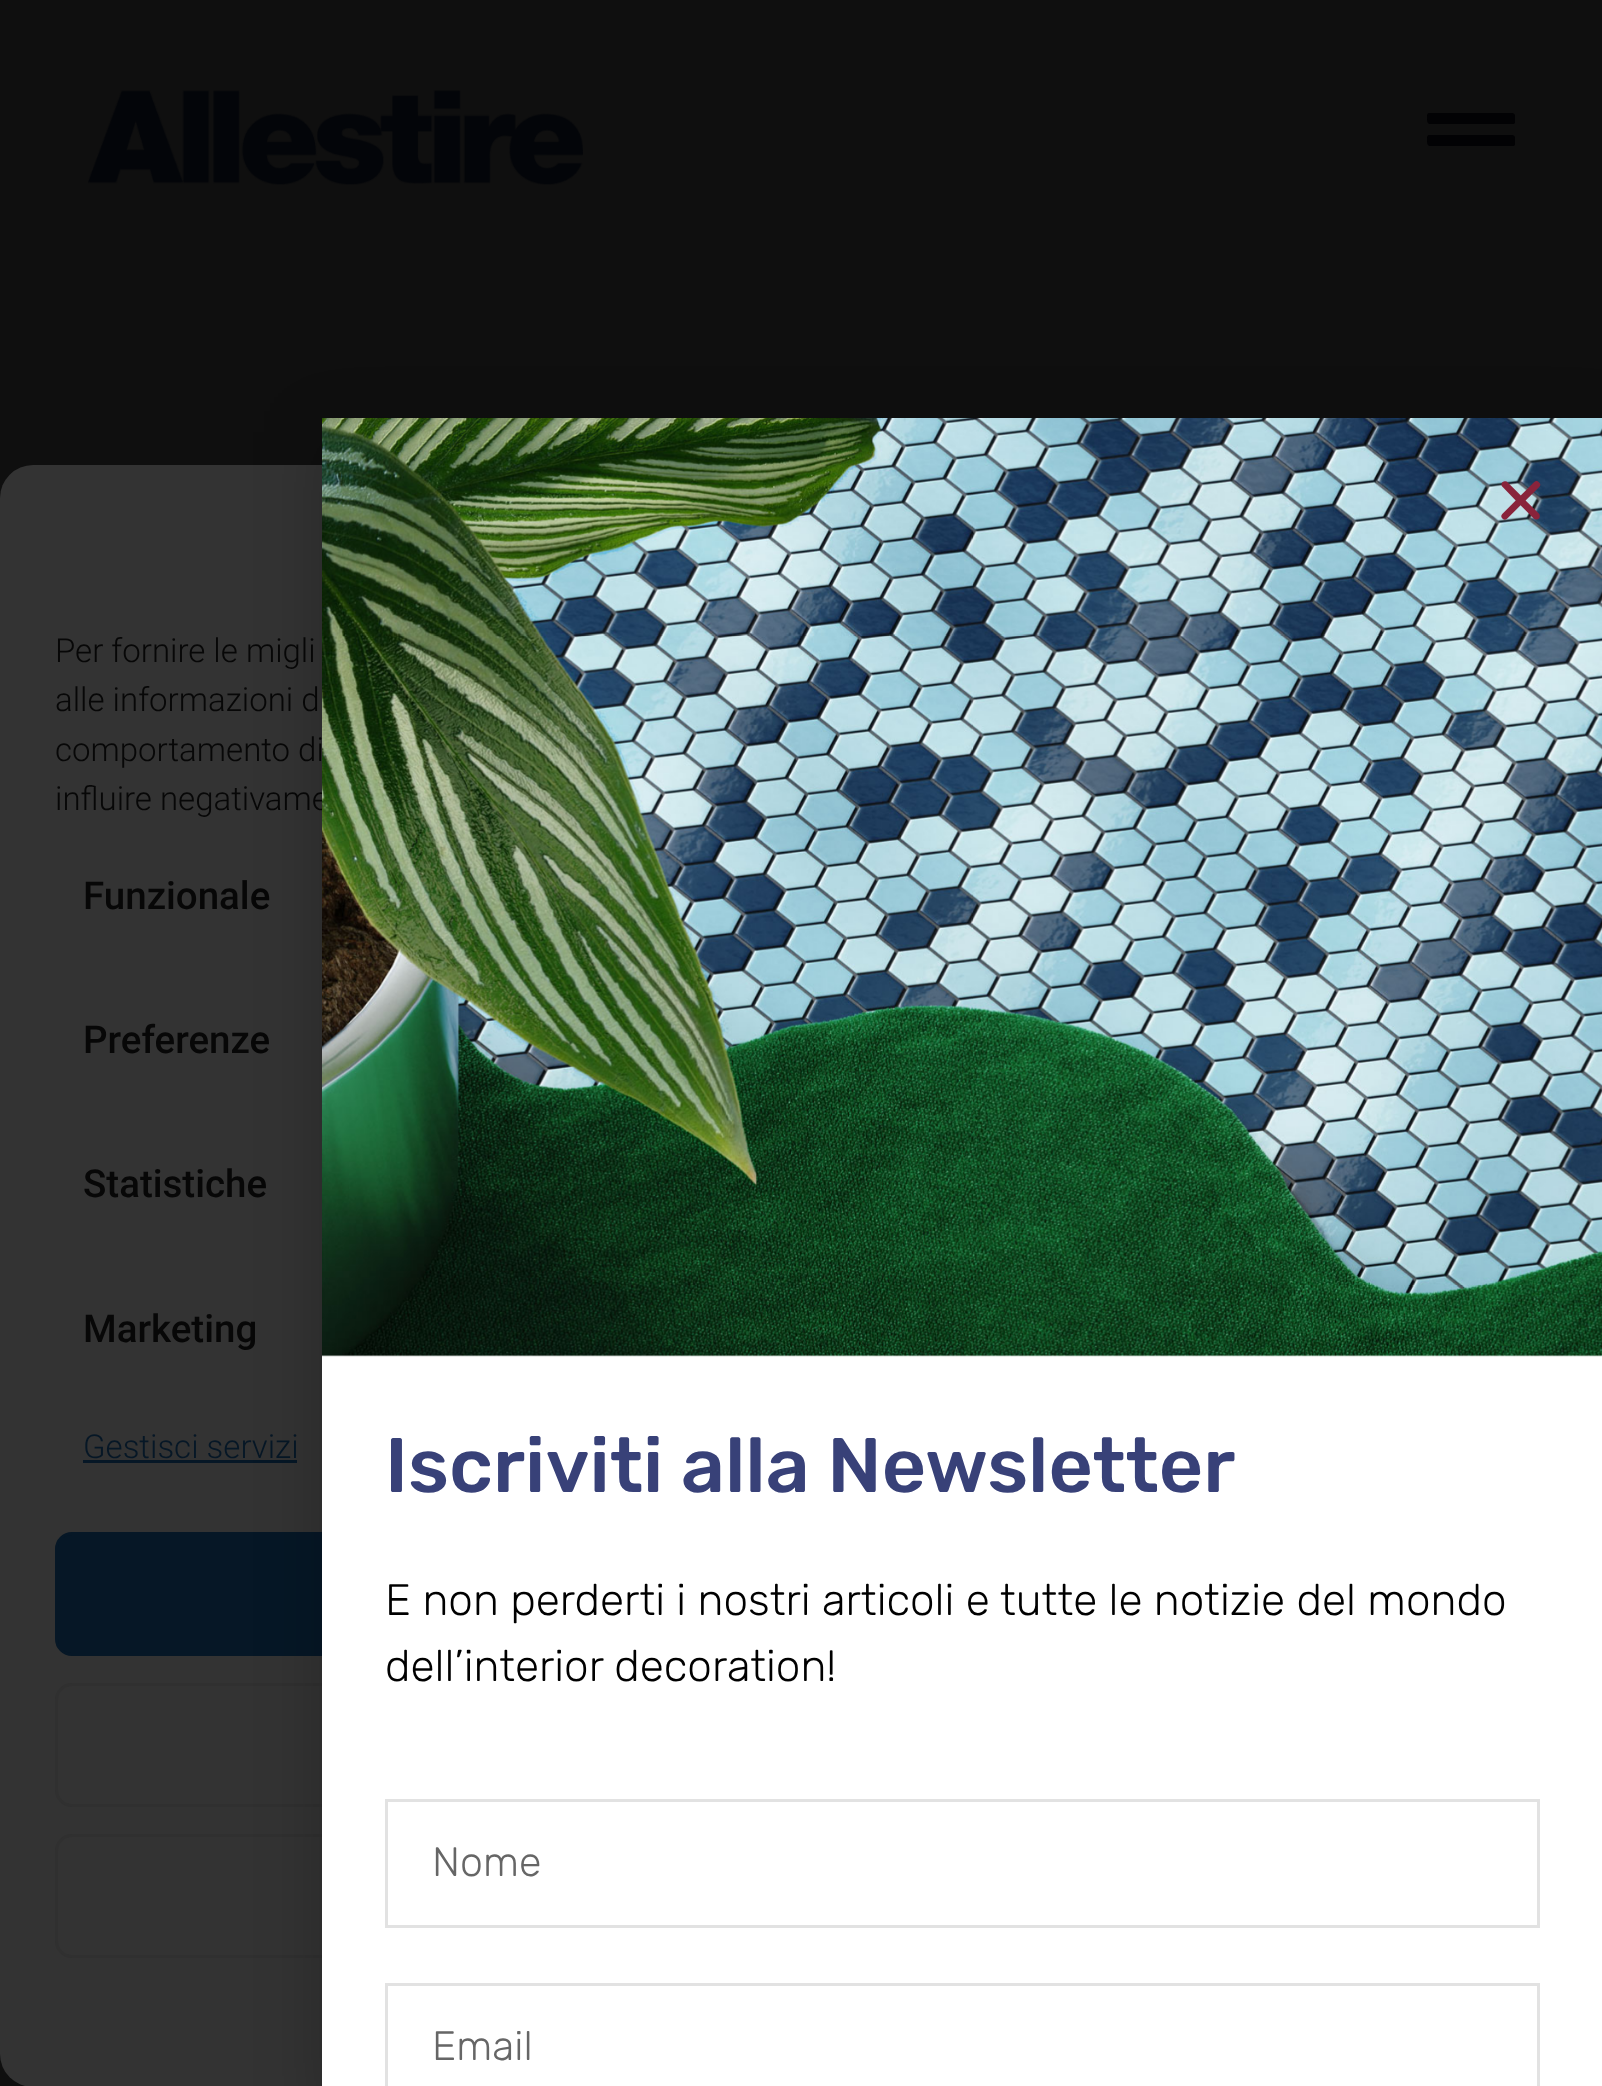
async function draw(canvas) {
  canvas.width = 1602
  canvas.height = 2086
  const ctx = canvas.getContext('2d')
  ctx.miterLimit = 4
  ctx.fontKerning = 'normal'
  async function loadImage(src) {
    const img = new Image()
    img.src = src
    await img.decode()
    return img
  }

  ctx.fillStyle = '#0f0f0f'
  ctx.fillRect(0, 0, 1602, 2086)
  ctx.drawImage(await loadImage('image0.png'), 88, 90, 495, 95)
  ctx.save()
  ctx.beginPath()
  ctx.rect(1427, 85, 88, 88)
  ctx.clip()
  ctx.fillStyle = '#020204'
  ctx.beginPath()
  ctx.moveTo(1512, 135)
  ctx.lineTo(1429, 135)
  ctx.bezierCurveTo(1427, 135, 1427, 138, 1427, 139)
  ctx.bezierCurveTo(1427, 142, 1427, 146, 1430, 146)
  ctx.lineTo(1514, 146)
  ctx.bezierCurveTo(1516, 144, 1517, 135, 1512, 135)
  ctx.closePath()
  ctx.moveTo(1512, 113)
  ctx.lineTo(1429, 113)
  ctx.bezierCurveTo(1427, 113, 1427, 116, 1427, 117)
  ctx.bezierCurveTo(1427, 120, 1427, 124, 1430, 124)
  ctx.lineTo(1514, 124)
  ctx.bezierCurveTo(1516, 122, 1517, 113, 1512, 113)
  ctx.closePath()
  ctx.fill()
  ctx.restore()
  ctx.fillStyle = '#333'
  ctx.beginPath()
  ctx.roundRect(0, 465, 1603, 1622, 33)
  ctx.fill()
  ctx.font = '300 33px Roboto'
  ctx.fillStyle = '#070707'
  ctx.fillText('Per fornire le migli', 55, 662)
  ctx.fillText('alle informazioni d', 55, 711)
  ctx.fillText('comportamento di', 55, 761)
  ctx.fillText('influire negativame', 55, 810)
  ctx.font = '500 38.5px Roboto'
  ctx.fillText('Funzionale', 83, 909)
  ctx.fillText('Preferenze', 83, 1053)
  ctx.fillText('Statistiche', 83, 1197)
  ctx.fillText('Marketing', 83, 1342)
  ctx.font = '300 33px Roboto'
  ctx.fillStyle = '#061726'
  ctx.fillText('Gestisci servizi', 83, 1458)
  ctx.fillRect(83, 1460, 214, 3)
  ctx.beginPath()
  ctx.roundRect(56.5, 1533.5, 1490, 121, 15.5)
  ctx.fill()
  ctx.strokeStyle = '#061726'
  ctx.lineWidth = 3
  ctx.stroke()
  ctx.beginPath()
  ctx.roundRect(56.5, 1684.5, 1490, 121, 15.5)
  ctx.strokeStyle = '#303030'
  ctx.stroke()
  ctx.beginPath()
  ctx.roundRect(56.5, 1835.5, 1490, 121, 15.5)
  ctx.stroke()
  ctx.fillStyle = '#00000033'
  ctx.filter = 'blur(31.5px)'
  ctx.beginPath()
  ctx.rect(319, 432, 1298, 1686)
  ctx.fill()
  ctx.filter = 'none'
  ctx.fillStyle = '#fff'
  ctx.fillRect(322, 1355, 1280, 731)
  ctx.drawImage(await loadImage('image2.png'), 322, 418, 1280, 939)
  ctx.drawImage(await loadImage('image1.png'), 1501, 481, 40, 39)
  ctx.font = '500 77px Rubik'
  ctx.fillStyle = '#384178'
  ctx.fillText('Iscriviti alla Newsletter', 385, 1492)
  ctx.font = '300 44px Rubik'
  ctx.fillStyle = '#000'
  ctx.fillText('E non perderti i nostri articoli e tutte le notizie del mondo', 385, 1615)
  ctx.fillText('dell’interior decoration!', 385, 1681)
  ctx.strokeStyle = '#e2e2e2'
  ctx.strokeRect(386.5, 1800.5, 1152, 126)
  ctx.font = '300 41px Rubik'
  ctx.fillStyle = '#666'
  ctx.fillText('Nome', 432, 1876)
  ctx.strokeRect(386.5, 1984.5, 1152, 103)
  ctx.fillText('Email', 432, 2060)
}

draw(document.querySelector('canvas'))
